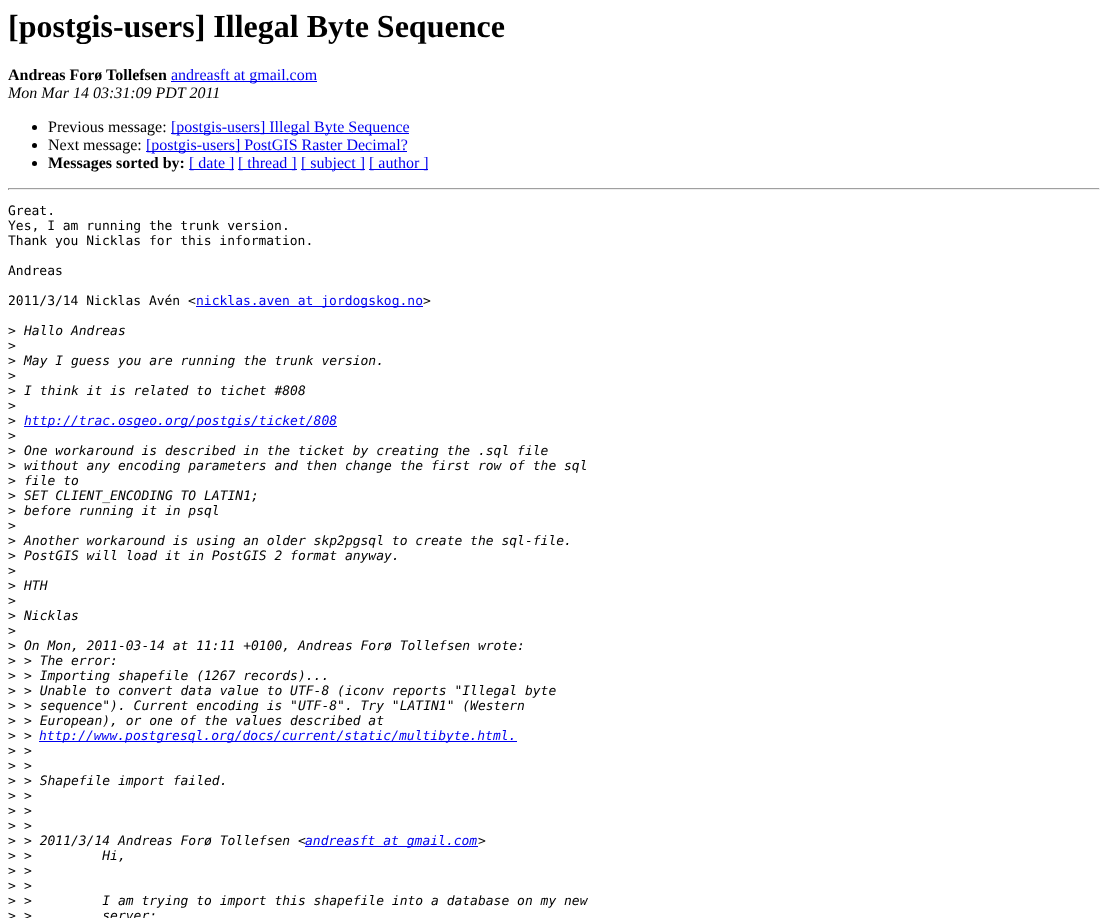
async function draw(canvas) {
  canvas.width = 1108
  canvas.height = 918
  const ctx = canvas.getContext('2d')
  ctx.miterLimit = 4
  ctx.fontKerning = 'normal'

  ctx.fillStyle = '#fff'
  ctx.fillRect(0, 0, 1108, 918)
  ctx.font = 'bold 32px Liberation Serif'
  ctx.fillStyle = '#000'
  ctx.fillText('[postgis-users] Illegal Byte Sequence', 8, 37)
  ctx.font = 'bold 16px Liberation Serif'
  ctx.fillText('Andreas Forø Tollefsen', 8, 80)
  ctx.fillStyle = '#00e'
  ctx.fillRect(171, 81, 146, 1)
  ctx.font = '16px Liberation Serif'
  ctx.fillText('andreasft at gmail.com', 171, 80)
  ctx.font = 'italic 16px Liberation Serif'
  ctx.fillStyle = '#000'
  ctx.fillText('Mon Mar 14 03:31:09 PDT 2011', 8, 98)
  ctx.beginPath()
  ctx.arc(34.5, 127.5, 2.5, 0, 2 * Math.PI)
  ctx.fill()
  ctx.font = '16px Liberation Serif'
  ctx.fillText('Previous message:', 48, 132)
  ctx.fillStyle = '#00e'
  ctx.fillRect(171, 133, 238, 1)
  ctx.fillText('[postgis-users] Illegal Byte Sequence', 171, 132)
  ctx.fillStyle = '#000'
  ctx.beginPath()
  ctx.arc(34.5, 145.5, 2.5, 0, 2 * Math.PI)
  ctx.fill()
  ctx.fillText('Next message:', 48, 150)
  ctx.fillStyle = '#00e'
  ctx.fillRect(146, 151, 261, 1)
  ctx.fillText('[postgis-users] PostGIS Raster Decimal?', 146, 150)
  ctx.fillStyle = '#000'
  ctx.beginPath()
  ctx.arc(34.5, 163.5, 2.5, 0, 2 * Math.PI)
  ctx.fill()
  ctx.font = 'bold 16px Liberation Serif'
  ctx.fillText('Messages sorted by:', 48, 168)
  ctx.fillStyle = '#00e'
  ctx.fillRect(189, 169, 45, 1)
  ctx.font = '16px Liberation Serif'
  ctx.fillText('[ date ]', 189, 168)
  ctx.fillRect(238, 169, 59, 1)
  ctx.fillText('[ thread ]', 238, 168)
  ctx.fillRect(301, 169, 64, 1)
  ctx.fillText('[ subject ]', 301, 168)
  ctx.fillRect(369, 169, 59, 1)
  ctx.fillText('[ author ]', 369, 168)
  ctx.fillStyle = '#9f9f9f'
  ctx.fillRect(8, 188, 1092, 1)
  ctx.fillStyle = '#eee'
  ctx.fillRect(1099, 188, 1, 2)
  ctx.fillRect(8, 189, 1092, 1)
  ctx.fillStyle = '#9f9f9f'
  ctx.fillRect(8, 188, 1, 2)
  ctx.font = '13px DejaVu Sans Mono'
  ctx.fillStyle = '#000'
  ctx.fillText('Great.', 8, 215)
  ctx.fillText('Yes, I am running the trunk version.', 8, 230)
  ctx.fillText('Thank you Nicklas for this information.', 8, 245)
  ctx.fillText('Andreas', 8, 275)
  ctx.fillText('2011/3/14 Nicklas Avén <', 8, 305)
  ctx.fillStyle = '#00e'
  ctx.fillRect(196, 306, 227, 1)
  ctx.fillText('nicklas.aven at jordogskog.no', 196, 305)
  ctx.fillStyle = '#000'
  ctx.fillText('>', 423, 305)
  ctx.fillText('>', 8, 335)
  ctx.font = 'italic 13px DejaVu Sans Mono'
  ctx.fillText('Hallo Andreas', 24, 335)
  ctx.font = '13px DejaVu Sans Mono'
  ctx.fillText('>', 8, 350)
  ctx.fillText('>', 8, 365)
  ctx.font = 'italic 13px DejaVu Sans Mono'
  ctx.fillText('May I guess you are running the trunk version.', 24, 365)
  ctx.font = '13px DejaVu Sans Mono'
  ctx.fillText('>', 8, 380)
  ctx.fillText('>', 8, 395)
  ctx.font = 'italic 13px DejaVu Sans Mono'
  ctx.fillText('I think it is related to tichet #808', 24, 395)
  ctx.font = '13px DejaVu Sans Mono'
  ctx.fillText('>', 8, 410)
  ctx.fillText('>', 8, 425)
  ctx.fillStyle = '#00e'
  ctx.fillRect(24, 426, 313, 1)
  ctx.font = 'italic 13px DejaVu Sans Mono'
  ctx.fillText('http://trac.osgeo.org/postgis/ticket/808', 24, 425)
  ctx.font = '13px DejaVu Sans Mono'
  ctx.fillStyle = '#000'
  ctx.fillText('>', 8, 440)
  ctx.fillText('>', 8, 455)
  ctx.font = 'italic 13px DejaVu Sans Mono'
  ctx.fillText('One workaround is described in the ticket by creating the .sql file', 24, 455)
  ctx.font = '13px DejaVu Sans Mono'
  ctx.fillText('>', 8, 470)
  ctx.font = 'italic 13px DejaVu Sans Mono'
  ctx.fillText('without any encoding parameters and then change the first row of the sql', 24, 470)
  ctx.font = '13px DejaVu Sans Mono'
  ctx.fillText('>', 8, 485)
  ctx.font = 'italic 13px DejaVu Sans Mono'
  ctx.fillText('file to', 24, 485)
  ctx.font = '13px DejaVu Sans Mono'
  ctx.fillText('>', 8, 500)
  ctx.font = 'italic 13px DejaVu Sans Mono'
  ctx.fillText('SET CLIENT_ENCODING TO LATIN1;', 24, 500)
  ctx.font = '13px DejaVu Sans Mono'
  ctx.fillText('>', 8, 515)
  ctx.font = 'italic 13px DejaVu Sans Mono'
  ctx.fillText('before running it in psql', 24, 515)
  ctx.font = '13px DejaVu Sans Mono'
  ctx.fillText('>', 8, 530)
  ctx.fillText('>', 8, 545)
  ctx.font = 'italic 13px DejaVu Sans Mono'
  ctx.fillText('Another workaround is using an older skp2pgsql to create the sql-file.', 24, 545)
  ctx.font = '13px DejaVu Sans Mono'
  ctx.fillText('>', 8, 560)
  ctx.font = 'italic 13px DejaVu Sans Mono'
  ctx.fillText('PostGIS will load it in PostGIS 2 format anyway.', 24, 560)
  ctx.font = '13px DejaVu Sans Mono'
  ctx.fillText('>', 8, 575)
  ctx.fillText('>', 8, 590)
  ctx.font = 'italic 13px DejaVu Sans Mono'
  ctx.fillText('HTH', 24, 590)
  ctx.font = '13px DejaVu Sans Mono'
  ctx.fillText('>', 8, 605)
  ctx.fillText('>', 8, 620)
  ctx.font = 'italic 13px DejaVu Sans Mono'
  ctx.fillText('Nicklas', 24, 620)
  ctx.font = '13px DejaVu Sans Mono'
  ctx.fillText('>', 8, 635)
  ctx.fillText('>', 8, 650)
  ctx.font = 'italic 13px DejaVu Sans Mono'
  ctx.fillText('On Mon, 2011-03-14 at 11:11 +0100, Andreas Forø Tollefsen wrote:', 24, 650)
  ctx.font = '13px DejaVu Sans Mono'
  ctx.fillText('>', 8, 665)
  ctx.font = 'italic 13px DejaVu Sans Mono'
  ctx.fillText('> The error:', 24, 665)
  ctx.font = '13px DejaVu Sans Mono'
  ctx.fillText('>', 8, 680)
  ctx.font = 'italic 13px DejaVu Sans Mono'
  ctx.fillText('> Importing shapefile (1267 records)...', 24, 680)
  ctx.font = '13px DejaVu Sans Mono'
  ctx.fillText('>', 8, 695)
  ctx.font = 'italic 13px DejaVu Sans Mono'
  ctx.fillText('> Unable to convert data value to UTF-8 (iconv reports "Illegal byte', 24, 695)
  ctx.font = '13px DejaVu Sans Mono'
  ctx.fillText('>', 8, 710)
  ctx.font = 'italic 13px DejaVu Sans Mono'
  ctx.fillText('> sequence"). Current encoding is "UTF-8". Try "LATIN1" (Western', 24, 710)
  ctx.font = '13px DejaVu Sans Mono'
  ctx.fillText('>', 8, 725)
  ctx.font = 'italic 13px DejaVu Sans Mono'
  ctx.fillText('> European), or one of the values described at', 24, 725)
  ctx.font = '13px DejaVu Sans Mono'
  ctx.fillText('>', 8, 740)
  ctx.font = 'italic 13px DejaVu Sans Mono'
  ctx.fillText('>', 24, 740)
  ctx.fillStyle = '#00e'
  ctx.fillRect(39, 741, 478, 1)
  ctx.fillText('http://www.postgresql.org/docs/current/static/multibyte.html.', 39, 740)
  ctx.font = '13px DejaVu Sans Mono'
  ctx.fillStyle = '#000'
  ctx.fillText('>', 8, 755)
  ctx.font = 'italic 13px DejaVu Sans Mono'
  ctx.fillText('>', 24, 755)
  ctx.font = '13px DejaVu Sans Mono'
  ctx.fillText('>', 8, 770)
  ctx.font = 'italic 13px DejaVu Sans Mono'
  ctx.fillText('>', 24, 770)
  ctx.font = '13px DejaVu Sans Mono'
  ctx.fillText('>', 8, 785)
  ctx.font = 'italic 13px DejaVu Sans Mono'
  ctx.fillText('> Shapefile import failed.', 24, 785)
  ctx.font = '13px DejaVu Sans Mono'
  ctx.fillText('>', 8, 800)
  ctx.font = 'italic 13px DejaVu Sans Mono'
  ctx.fillText('>', 24, 800)
  ctx.font = '13px DejaVu Sans Mono'
  ctx.fillText('>', 8, 815)
  ctx.font = 'italic 13px DejaVu Sans Mono'
  ctx.fillText('>', 24, 815)
  ctx.font = '13px DejaVu Sans Mono'
  ctx.fillText('>', 8, 830)
  ctx.font = 'italic 13px DejaVu Sans Mono'
  ctx.fillText('>', 24, 830)
  ctx.font = '13px DejaVu Sans Mono'
  ctx.fillText('>', 8, 845)
  ctx.font = 'italic 13px DejaVu Sans Mono'
  ctx.fillText('> 2011/3/14 Andreas Forø Tollefsen <', 24, 845)
  ctx.fillStyle = '#00e'
  ctx.fillRect(305, 846, 173, 1)
  ctx.fillText('andreasft at gmail.com', 305, 845)
  ctx.fillStyle = '#000'
  ctx.fillText('>', 478, 845)
  ctx.font = '13px DejaVu Sans Mono'
  ctx.fillText('>', 8, 860)
  ctx.font = 'italic 13px DejaVu Sans Mono'
  ctx.fillText('>         Hi,', 24, 860)
  ctx.font = '13px DejaVu Sans Mono'
  ctx.fillText('>', 8, 875)
  ctx.font = 'italic 13px DejaVu Sans Mono'
  ctx.fillText('>', 24, 875)
  ctx.font = '13px DejaVu Sans Mono'
  ctx.fillText('>', 8, 890)
  ctx.font = 'italic 13px DejaVu Sans Mono'
  ctx.fillText('>', 24, 890)
  ctx.font = '13px DejaVu Sans Mono'
  ctx.fillText('>', 8, 905)
  ctx.font = 'italic 13px DejaVu Sans Mono'
  ctx.fillText('>         I am trying to import this shapefile into a database on my new', 24, 905)
  ctx.font = '13px DejaVu Sans Mono'
  ctx.fillText('>', 8, 920)
  ctx.font = 'italic 13px DejaVu Sans Mono'
  ctx.fillText('>         server:', 24, 920)
}

draw(document.querySelector('canvas'))
